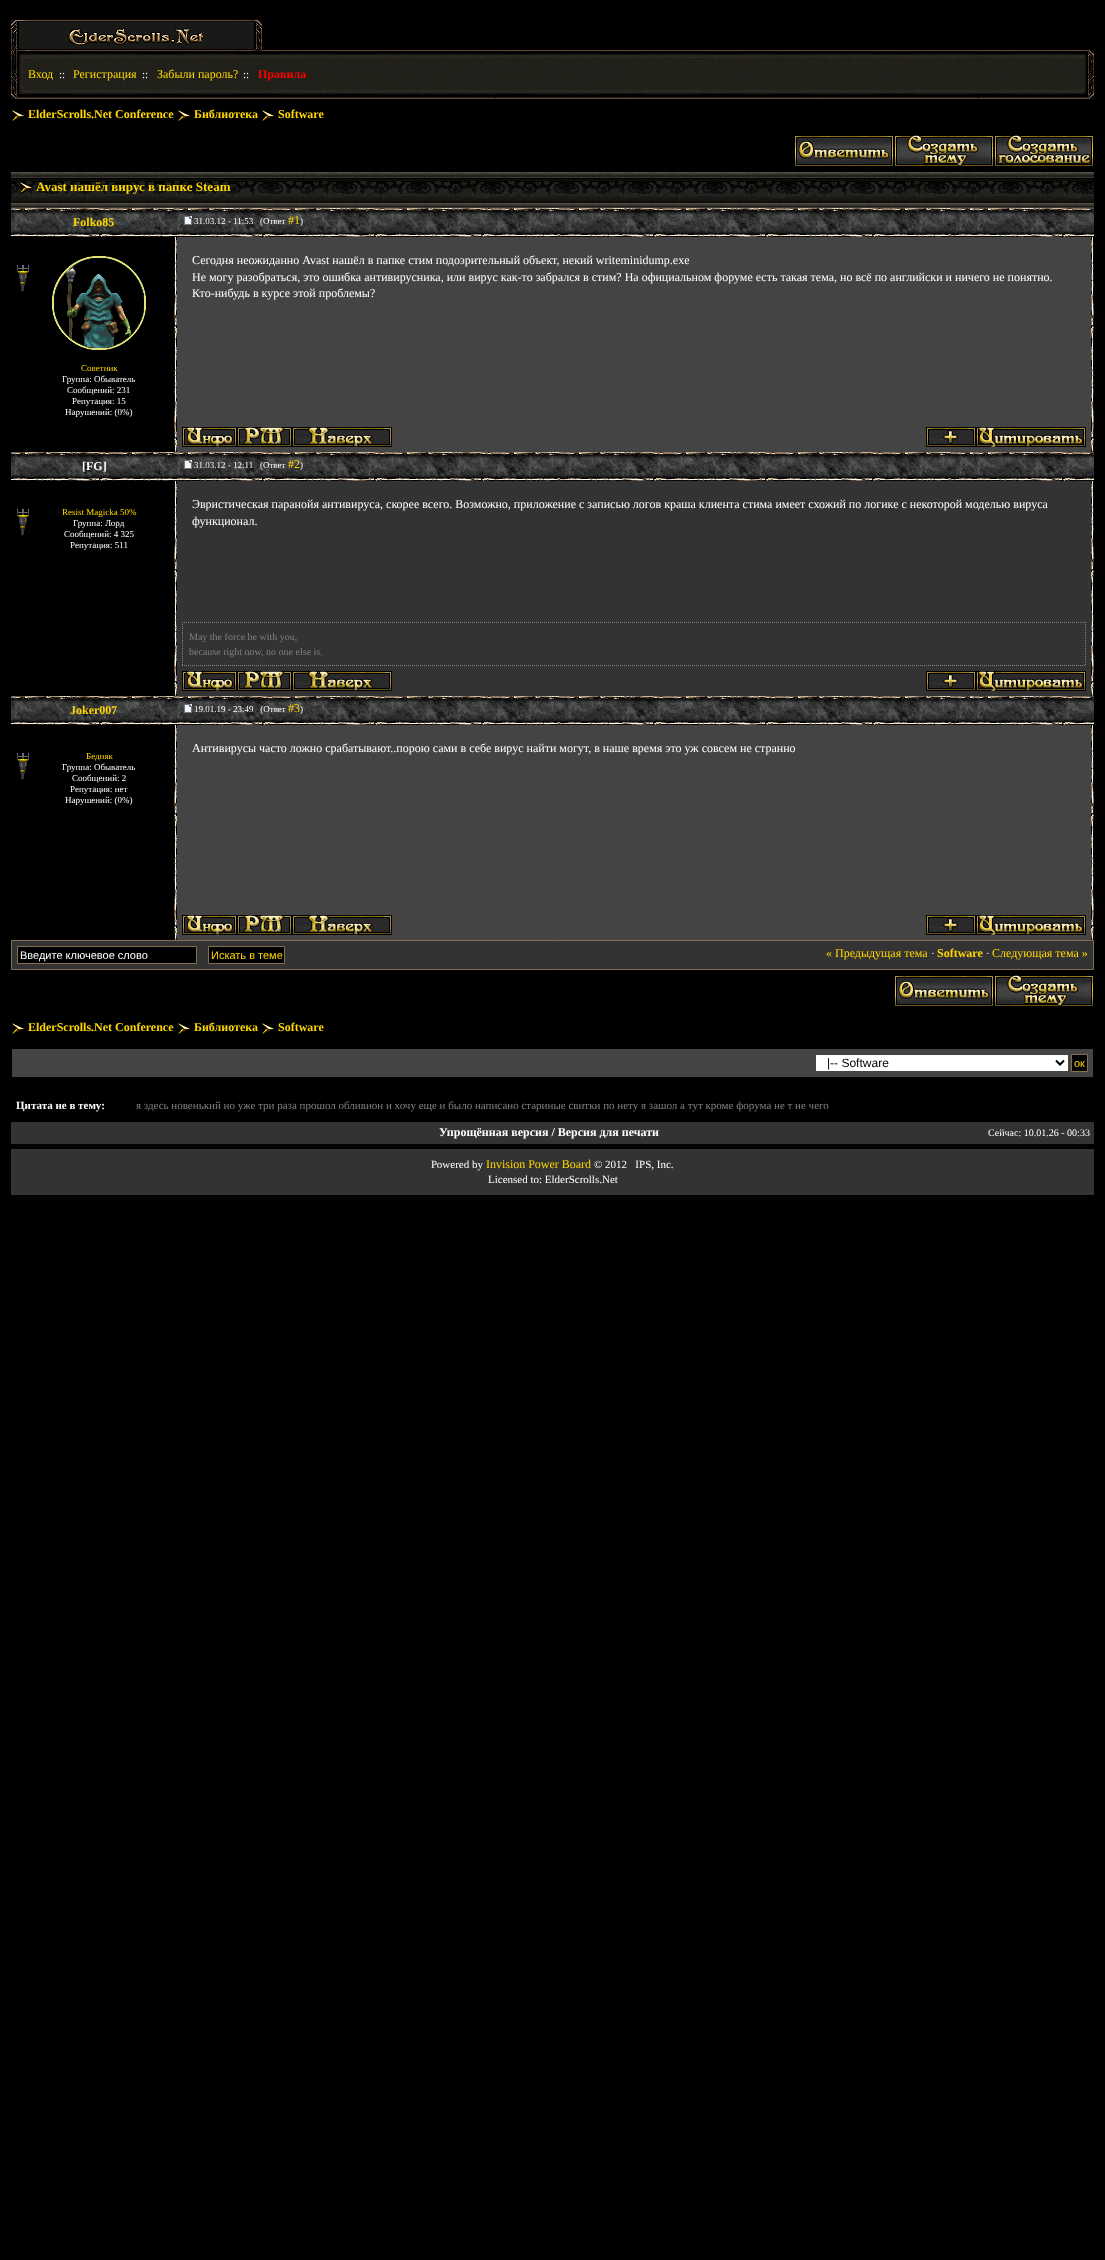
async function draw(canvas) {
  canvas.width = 1105
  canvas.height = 2260
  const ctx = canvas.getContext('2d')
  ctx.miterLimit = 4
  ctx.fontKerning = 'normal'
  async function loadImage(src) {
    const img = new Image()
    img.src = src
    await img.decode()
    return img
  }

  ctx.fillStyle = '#000'
  ctx.fillRect(0, 0, 1105, 2260)
  ctx.drawImage(await loadImage('image0.png'), 11, 20, 251, 31)
  ctx.fillStyle = '#654a37'
  ctx.fillRect(262, 50, 822, 1)
  ctx.drawImage(await loadImage('image1.png'), 1084, 50, 10, 1)
  ctx.drawImage(await loadImage('image2.png'), 11, 51, 1073, 48)
  ctx.font = '12px Liberation Serif'
  ctx.fillStyle = '#ffd700'
  ctx.fillText('Вход', 28, 78)
  ctx.font = '11px Liberation Serif'
  ctx.fillStyle = '#fff'
  ctx.fillText('::', 59, 78)
  ctx.font = '12px Liberation Serif'
  ctx.fillStyle = '#ffd700'
  ctx.fillText('Регистрация', 73, 78)
  ctx.font = '11px Liberation Serif'
  ctx.fillStyle = '#fff'
  ctx.fillText('::', 142, 78)
  ctx.font = '12px Liberation Serif'
  ctx.fillStyle = '#ffd700'
  ctx.fillText('Забыли пароль?', 157, 78)
  ctx.font = '11px Liberation Serif'
  ctx.fillStyle = '#fff'
  ctx.fillText('::', 243, 78)
  ctx.font = 'bold 12px Liberation Serif'
  ctx.fillStyle = '#f00'
  ctx.fillText('Правила', 258, 78)
  ctx.drawImage(await loadImage('image3.png'), 1084, 51, 10, 48)
  ctx.drawImage(await loadImage('image4.png'), 12, 110, 12, 11)
  ctx.fillStyle = '#ffd700'
  ctx.fillText('ElderScrolls.Net Conference', 28, 118)
  ctx.drawImage(await loadImage('image4.png'), 178, 110, 12, 11)
  ctx.fillText('Библиотека', 194, 118)
  ctx.drawImage(await loadImage('image4.png'), 262, 110, 12, 11)
  ctx.fillText('Software', 278, 118)
  ctx.drawImage(await loadImage('image5.png'), 795, 135, 98, 31)
  ctx.drawImage(await loadImage('image6.png'), 895, 135, 98, 31)
  ctx.drawImage(await loadImage('image7.png'), 995, 135, 98, 31)
  ctx.drawImage(await loadImage('image8.png'), 11, 172, 1083, 36)
  ctx.drawImage(await loadImage('image9.png'), 19, 182, 14, 12)
  ctx.font = 'bold 13px Liberation Serif'
  ctx.fillText('Avast нашёл вирус в папке Steam', 36, 191)
  ctx.drawImage(await loadImage('image10.png'), 11, 208, 163, 29)
  ctx.font = 'bold 12px Liberation Serif'
  ctx.fillText('Folko85', 73, 226)
  ctx.drawImage(await loadImage('image11.png'), 174, 208, 920, 29)
  ctx.drawImage(await loadImage('image12.png'), 184, 216, 8, 9)
  ctx.font = '9px Liberation Serif'
  ctx.fillStyle = '#fff'
  ctx.fillText('31.03.12 - 11:53   (Ответ', 194, 224)
  ctx.font = '12px Liberation Serif'
  ctx.fillStyle = '#ffd700'
  ctx.fillText('#1', 288, 224)
  ctx.font = '9px Liberation Serif'
  ctx.fillStyle = '#fff'
  ctx.fillText(')', 300, 224)
  ctx.drawImage(await loadImage('image13.png'), 174, 237, 3, 215)
  ctx.fillStyle = '#444'
  ctx.fillRect(177, 237, 914, 215)
  ctx.font = '12px Liberation Serif'
  ctx.fillStyle = '#fff'
  ctx.fillText('Сегодня неожиданно Avast нашёл в папке стим подозрительный объект, некий writeminidump.exe', 192, 264)
  ctx.fillText('Не могу разобраться, это ошибка антивирусника, или вирус как-то забрался в стим? На официальном форуме есть такая тема, но всё по английски и ничего не понятно.', 192, 281)
  ctx.fillText('Кто-нибудь в курсе этой проблемы?', 192, 297)
  ctx.drawImage(await loadImage('image14.png'), 182, 427, 55, 20)
  ctx.drawImage(await loadImage('image15.png'), 237, 427, 55, 20)
  ctx.drawImage(await loadImage('image16.png'), 292, 427, 100, 20)
  ctx.drawImage(await loadImage('image17.png'), 926, 427, 50, 20)
  ctx.drawImage(await loadImage('image18.png'), 976, 427, 110, 20)
  ctx.drawImage(await loadImage('image19.png'), 1091, 237, 3, 215)
  ctx.drawImage(await loadImage('image20.png'), 17, 265, 12, 27)
  ctx.drawImage(await loadImage('image21.png'), 52, 256, 94, 94)
  ctx.font = '9px Liberation Serif'
  ctx.fillStyle = '#ffd700'
  ctx.fillText('Советник', 81, 371)
  ctx.fillStyle = '#fff'
  ctx.fillText('Группа: Обыватель', 62, 382)
  ctx.fillText('Сообщений: 231', 67, 393)
  ctx.fillText('Репутация: 15', 72, 404)
  ctx.fillText('Нарушений: (0%)', 65, 415)
  ctx.drawImage(await loadImage('image10.png'), 11, 452, 163, 29)
  ctx.font = 'bold 12px Liberation Serif'
  ctx.fillText('[FG]', 82, 470)
  ctx.drawImage(await loadImage('image11.png'), 174, 452, 920, 29)
  ctx.drawImage(await loadImage('image12.png'), 184, 460, 8, 9)
  ctx.font = '9px Liberation Serif'
  ctx.fillText('31.03.12 - 12:11   (Ответ', 194, 468)
  ctx.font = '12px Liberation Serif'
  ctx.fillStyle = '#ffd700'
  ctx.fillText('#2', 288, 468)
  ctx.font = '9px Liberation Serif'
  ctx.fillStyle = '#fff'
  ctx.fillText(')', 300, 468)
  ctx.drawImage(await loadImage('image20.png'), 17, 509, 12, 27)
  ctx.fillStyle = '#ffd700'
  ctx.fillText('Resist Magicka 50%', 62, 515)
  ctx.fillStyle = '#fff'
  ctx.fillText('Группа: Лорд', 73, 526)
  ctx.fillText('Сообщений: 4 325', 64, 537)
  ctx.fillText('Репутация: 511', 70, 548)
  ctx.drawImage(await loadImage('image13.png'), 174, 481, 3, 215)
  ctx.fillStyle = '#333'
  ctx.fillRect(177, 481, 914, 215)
  ctx.font = '12px Liberation Serif'
  ctx.fillStyle = '#fff'
  ctx.fillText('Эвристическая паранойя антивируса, скорее всего. Возможно, приложение с записью логов краша клиента стима имеет схожий по логике с некоторой моделью вируса', 192, 508)
  ctx.fillText('функционал.', 192, 525)
  ctx.beginPath()
  ctx.moveTo(182, 622.5)
  ctx.lineTo(1086, 622.5)
  ctx.strokeStyle = '#808080'
  ctx.setLineDash([1, 1])
  ctx.stroke()
  ctx.beginPath()
  ctx.moveTo(1085.5, 622)
  ctx.lineTo(1085.5, 666)
  ctx.stroke()
  ctx.beginPath()
  ctx.moveTo(182, 665.5)
  ctx.lineTo(1086, 665.5)
  ctx.stroke()
  ctx.beginPath()
  ctx.moveTo(182.5, 622)
  ctx.lineTo(182.5, 666)
  ctx.stroke()
  ctx.font = '10px Liberation Serif'
  ctx.fillStyle = '#808080'
  ctx.fillText('May the force be with you,', 189, 640)
  ctx.fillText('because right now, no one else is.', 189, 655)
  ctx.drawImage(await loadImage('image14.png'), 182, 671, 55, 20)
  ctx.drawImage(await loadImage('image15.png'), 237, 671, 55, 20)
  ctx.drawImage(await loadImage('image16.png'), 292, 671, 100, 20)
  ctx.drawImage(await loadImage('image17.png'), 926, 671, 50, 20)
  ctx.drawImage(await loadImage('image18.png'), 976, 671, 110, 20)
  ctx.drawImage(await loadImage('image19.png'), 1091, 481, 3, 215)
  ctx.drawImage(await loadImage('image10.png'), 11, 696, 163, 29)
  ctx.font = 'bold 12px Liberation Serif'
  ctx.fillStyle = '#ffd700'
  ctx.fillText('Joker007', 70, 714)
  ctx.drawImage(await loadImage('image11.png'), 174, 696, 920, 29)
  ctx.drawImage(await loadImage('image12.png'), 184, 704, 8, 9)
  ctx.font = '9px Liberation Serif'
  ctx.fillStyle = '#fff'
  ctx.fillText('19.01.19 - 23:49   (Ответ', 194, 712)
  ctx.font = '12px Liberation Serif'
  ctx.fillStyle = '#ffd700'
  ctx.fillText('#3', 288, 712)
  ctx.font = '9px Liberation Serif'
  ctx.fillStyle = '#fff'
  ctx.fillText(')', 300, 712)
  ctx.drawImage(await loadImage('image13.png'), 174, 725, 3, 215)
  ctx.fillStyle = '#444'
  ctx.fillRect(177, 725, 914, 215)
  ctx.font = '12px Liberation Serif'
  ctx.fillStyle = '#fff'
  ctx.fillText('Антивирусы часто ложно срабатывают..порою сами в себе вирус найти могут, в наше время это уж совсем не странно', 192, 752)
  ctx.drawImage(await loadImage('image14.png'), 182, 915, 55, 20)
  ctx.drawImage(await loadImage('image15.png'), 237, 915, 55, 20)
  ctx.drawImage(await loadImage('image16.png'), 292, 915, 100, 20)
  ctx.drawImage(await loadImage('image17.png'), 926, 915, 50, 20)
  ctx.drawImage(await loadImage('image18.png'), 976, 915, 110, 20)
  ctx.drawImage(await loadImage('image19.png'), 1091, 725, 3, 215)
  ctx.drawImage(await loadImage('image20.png'), 17, 753, 12, 27)
  ctx.font = '9px Liberation Serif'
  ctx.fillStyle = '#ffd700'
  ctx.fillText('Бедняк', 86, 759)
  ctx.fillStyle = '#fff'
  ctx.fillText('Группа: Обыватель', 62, 770)
  ctx.fillText('Сообщений: 2', 72, 781)
  ctx.fillText('Репутация: нет', 70, 792)
  ctx.fillText('Нарушений: (0%)', 65, 803)
  ctx.fillStyle = '#333'
  ctx.beginPath()
  ctx.rect(11.5, 940.5, 1082, 29)
  ctx.fill()
  ctx.strokeStyle = '#866f50'
  ctx.setLineDash([])
  ctx.stroke()
  ctx.fillStyle = '#000'
  ctx.beginPath()
  ctx.rect(17.5, 946.5, 179, 17)
  ctx.fill()
  ctx.stroke()
  ctx.font = '11px Liberation Sans'
  ctx.fillStyle = '#fff'
  ctx.fillText('Введите ключевое слово', 20, 959)
  ctx.fillStyle = '#000'
  ctx.beginPath()
  ctx.rect(208.5, 946.5, 76, 17)
  ctx.fill()
  ctx.stroke()
  ctx.fillStyle = '#ffd700'
  ctx.fillText('Искать в теме', 211, 959)
  ctx.font = '12px Liberation Serif'
  ctx.fillText('« Предыдущая тема', 826, 957)
  ctx.font = '11px Liberation Serif'
  ctx.fillStyle = '#fff'
  ctx.fillText('·', 931, 957)
  ctx.font = 'bold 12px Liberation Serif'
  ctx.fillStyle = '#ffd700'
  ctx.fillText('Software', 937, 957)
  ctx.font = '11px Liberation Serif'
  ctx.fillStyle = '#fff'
  ctx.fillText('·', 986, 957)
  ctx.font = '12px Liberation Serif'
  ctx.fillStyle = '#ffd700'
  ctx.fillText('Следующая тема »', 992, 957)
  ctx.drawImage(await loadImage('image5.png'), 895, 975, 98, 31)
  ctx.drawImage(await loadImage('image6.png'), 995, 975, 98, 31)
  ctx.drawImage(await loadImage('image4.png'), 12, 1023, 12, 11)
  ctx.font = 'bold 12px Liberation Serif'
  ctx.fillText('ElderScrolls.Net Conference', 28, 1031)
  ctx.drawImage(await loadImage('image4.png'), 178, 1023, 12, 11)
  ctx.fillText('Библиотека', 194, 1031)
  ctx.drawImage(await loadImage('image4.png'), 262, 1023, 12, 11)
  ctx.fillText('Software', 278, 1031)
  ctx.fillStyle = '#444'
  ctx.fillRect(12, 1049, 1081, 28)
  ctx.fillStyle = '#fff'
  ctx.fillRect(816, 1055, 252, 16)
  ctx.beginPath()
  ctx.moveTo(1056, 1060.5)
  ctx.lineTo(1060, 1064.5)
  ctx.lineTo(1064, 1060.5)
  ctx.strokeStyle = '#000'
  ctx.lineWidth = 2
  ctx.stroke()
  ctx.font = '12px Liberation Sans'
  ctx.fillStyle = '#000'
  ctx.fillText('|-- Software', 827, 1067)
  ctx.beginPath()
  ctx.rect(1071.5, 1054.5, 16, 17)
  ctx.fill()
  ctx.strokeStyle = '#866f50'
  ctx.lineWidth = 1
  ctx.stroke()
  ctx.font = '11px Liberation Sans'
  ctx.fillStyle = '#ffd700'
  ctx.fillText('ок', 1074, 1067)
  ctx.font = 'bold 11px Liberation Serif'
  ctx.fillStyle = '#fff'
  ctx.fillText('Цитата не в тему:', 16, 1109)
  ctx.font = '11px Liberation Serif'
  ctx.fillStyle = '#808080'
  ctx.fillText('я здесь новенький но уже три раза прошол обливион и хочу еще и было написано стариные свитки по нету я зашол а тут кроме форума не т не чего', 136, 1109)
  ctx.fillStyle = '#333'
  ctx.fillRect(11, 1122, 1083, 22)
  ctx.font = 'bold 12px Liberation Serif'
  ctx.fillStyle = '#fff'
  ctx.fillText('Упрощённая версия / Версия для печати', 439, 1136)
  ctx.font = '10px Liberation Serif'
  ctx.fillText('Сейчас: 10.01.26 - 00:33', 988, 1136)
  ctx.fillStyle = '#333'
  ctx.fillRect(11, 1149, 1083, 46)
  ctx.font = '11px Liberation Serif'
  ctx.fillStyle = '#fff'
  ctx.fillText('Роwеrеd by', 431, 1168)
  ctx.font = '12px Liberation Serif'
  ctx.fillStyle = '#ffd700'
  ctx.fillText('Invisiоn Роwеr Воаrd', 486, 1168)
  ctx.font = '11px Liberation Serif'
  ctx.fillStyle = '#fff'
  ctx.fillText('© 2012   IPS, Inc.', 594, 1168)
  ctx.fillText('Licensed to: ElderScrolls.Net', 488, 1183)
}

draw(document.querySelector('canvas'))
